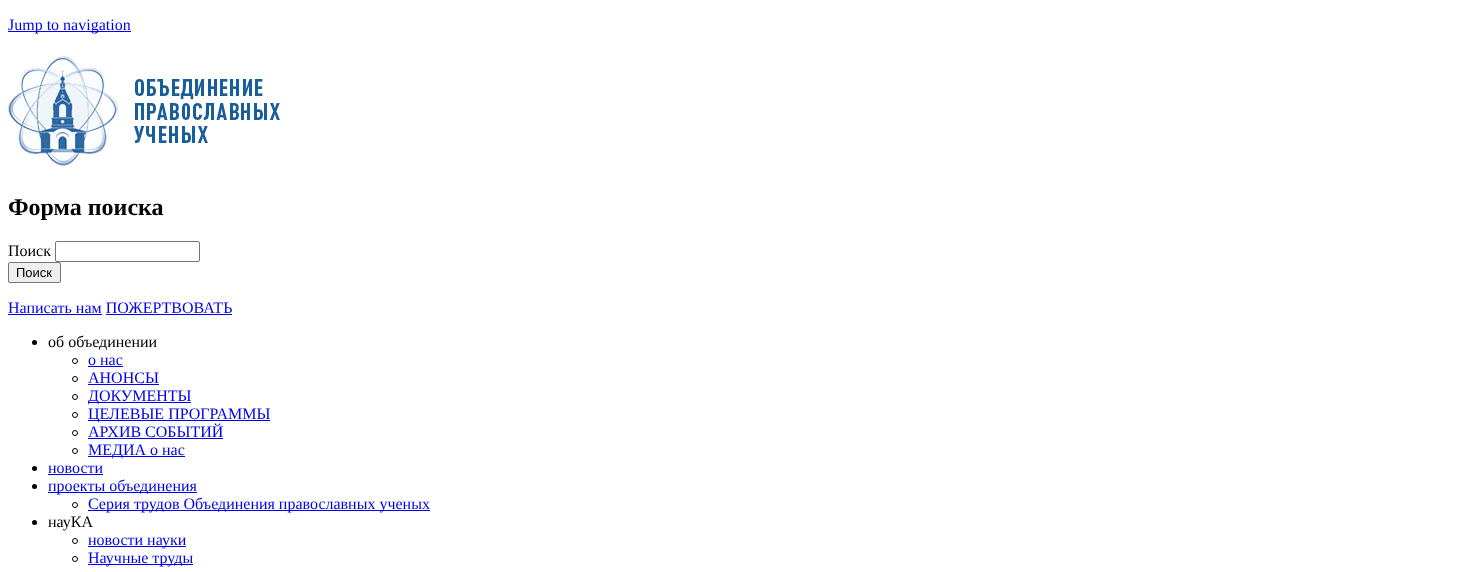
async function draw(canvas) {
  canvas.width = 1458
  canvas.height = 572
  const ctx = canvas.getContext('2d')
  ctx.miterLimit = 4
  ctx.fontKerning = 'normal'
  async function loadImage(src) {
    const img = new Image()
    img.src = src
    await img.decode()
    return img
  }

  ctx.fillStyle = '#fff'
  ctx.fillRect(0, 0, 1458, 572)
  ctx.fillStyle = '#00e'
  ctx.fillRect(8, 31, 123, 1)
  ctx.font = '16px Liberation Serif'
  ctx.fillText('Jump to navigation', 8, 30)
  ctx.drawImage(await loadImage('image0.png'), 8, 56, 272, 110)
  ctx.font = 'bold 24px Liberation Serif'
  ctx.fillStyle = '#000'
  ctx.fillText('Форма поиска', 8, 215)
  ctx.font = '16px Liberation Serif'
  ctx.fillText('Поиск', 8, 256)
  ctx.beginPath()
  ctx.roundRect(55.5, 241.5, 144, 20, 1.5)
  ctx.strokeStyle = '#767676'
  ctx.stroke()
  ctx.fillStyle = '#efefef'
  ctx.beginPath()
  ctx.roundRect(8.5, 262.5, 52, 20, 1.5)
  ctx.fill()
  ctx.stroke()
  ctx.font = '13px Liberation Sans'
  ctx.fillStyle = '#000'
  ctx.fillText('Поиск', 16, 277)
  ctx.font = '16px Liberation Serif'
  ctx.fillStyle = '#00e'
  ctx.fillText('Написать нам ПОЖЕРТВОВАТЬ', 8, 313)
  ctx.fillRect(8, 314, 94, 1)
  ctx.fillRect(106, 314, 126, 1)
  ctx.fillStyle = '#000'
  ctx.beginPath()
  ctx.arc(34.5, 342.5, 2.5, 0, 2 * Math.PI)
  ctx.fill()
  ctx.fillText('об объединении', 48, 347)
  ctx.beginPath()
  ctx.arc(75, 361, 2.5, 0, 2 * Math.PI)
  ctx.strokeStyle = '#000'
  ctx.stroke()
  ctx.fillStyle = '#00e'
  ctx.fillText('о нас', 88, 365)
  ctx.fillRect(88, 366, 35, 1)
  ctx.beginPath()
  ctx.arc(75, 379, 2.5, 0, 2 * Math.PI)
  ctx.stroke()
  ctx.fillText('АНОНСЫ', 88, 383)
  ctx.fillRect(88, 384, 71, 1)
  ctx.beginPath()
  ctx.arc(75, 397, 2.5, 0, 2 * Math.PI)
  ctx.stroke()
  ctx.fillRect(88, 402, 103, 1)
  ctx.fillText('ДОКУМЕНТЫ', 88, 401)
  ctx.beginPath()
  ctx.arc(75, 415, 2.5, 0, 2 * Math.PI)
  ctx.stroke()
  ctx.fillRect(88, 420, 182, 1)
  ctx.fillText('ЦЕЛЕВЫЕ ПРОГРАММЫ', 88, 419)
  ctx.beginPath()
  ctx.arc(75, 433, 2.5, 0, 2 * Math.PI)
  ctx.stroke()
  ctx.fillText('АРХИВ СОБЫТИЙ', 88, 437)
  ctx.fillRect(88, 438, 135, 1)
  ctx.beginPath()
  ctx.arc(75, 451, 2.5, 0, 2 * Math.PI)
  ctx.stroke()
  ctx.fillRect(88, 456, 97, 1)
  ctx.fillText('МЕДИА о нас', 88, 455)
  ctx.fillStyle = '#000'
  ctx.beginPath()
  ctx.arc(34.5, 468.5, 2.5, 0, 2 * Math.PI)
  ctx.fill()
  ctx.fillStyle = '#00e'
  ctx.fillText('новости', 48, 473)
  ctx.fillRect(48, 474, 55, 1)
  ctx.fillStyle = '#000'
  ctx.beginPath()
  ctx.arc(34.5, 486.5, 2.5, 0, 2 * Math.PI)
  ctx.fill()
  ctx.fillStyle = '#00e'
  ctx.fillRect(48, 492, 149, 1)
  ctx.fillText('проекты объединения', 48, 491)
  ctx.beginPath()
  ctx.arc(75, 505, 2.5, 0, 2 * Math.PI)
  ctx.stroke()
  ctx.fillRect(88, 510, 342, 1)
  ctx.fillText('Серия трудов Объединения православных ученых', 88, 509)
  ctx.fillStyle = '#000'
  ctx.beginPath()
  ctx.arc(34.5, 522.5, 2.5, 0, 2 * Math.PI)
  ctx.fill()
  ctx.fillText('науКА', 48, 527)
  ctx.beginPath()
  ctx.arc(75, 541, 2.5, 0, 2 * Math.PI)
  ctx.stroke()
  ctx.fillStyle = '#00e'
  ctx.fillRect(88, 546, 98, 1)
  ctx.fillText('новости науки', 88, 545)
  ctx.beginPath()
  ctx.arc(75, 559, 2.5, 0, 2 * Math.PI)
  ctx.stroke()
  ctx.fillRect(88, 564, 105, 1)
  ctx.fillText('Научные труды', 88, 563)
}

draw(document.querySelector('canvas'))
